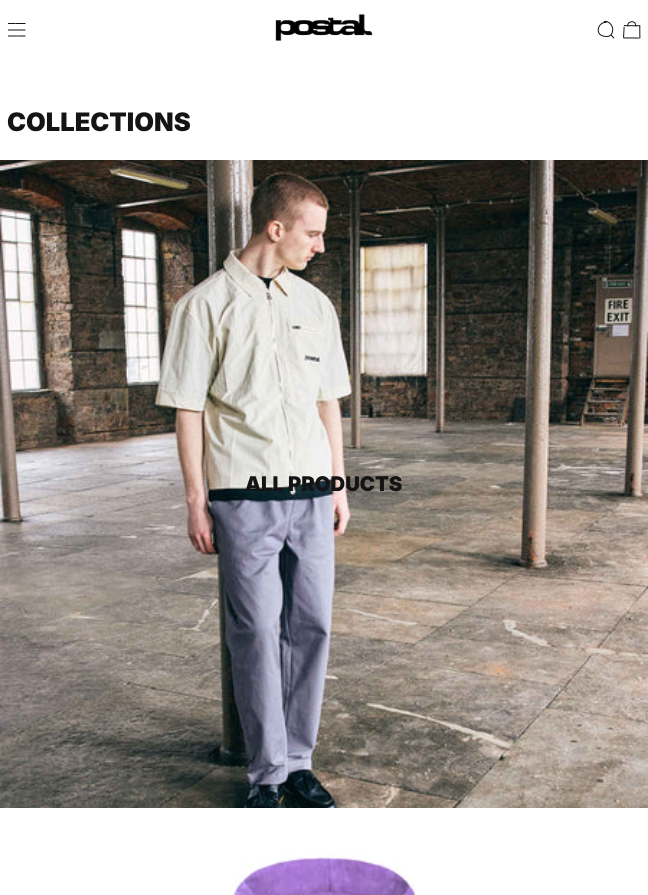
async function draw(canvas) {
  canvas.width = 648
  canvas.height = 895
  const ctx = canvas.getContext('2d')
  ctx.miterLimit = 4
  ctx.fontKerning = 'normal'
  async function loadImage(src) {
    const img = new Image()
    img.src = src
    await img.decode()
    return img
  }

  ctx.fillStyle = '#fff'
  ctx.fillRect(0, 0, 648, 895)
  ctx.beginPath()
  ctx.moveTo(25.5, 23.5)
  ctx.lineTo(15.5, 23.5)
  ctx.lineTo(8, 23.5)
  ctx.moveTo(8, 30)
  ctx.lineTo(25.5, 30)
  ctx.moveTo(8, 36)
  ctx.lineTo(17.5, 36)
  ctx.lineTo(25.5, 36)
  ctx.strokeStyle = '#141414'
  ctx.stroke()
  ctx.drawImage(await loadImage('image0.png'), 275, 14, 98, 27)
  ctx.drawImage(await loadImage('image1.png'), 597, 20, 18, 19)
  ctx.drawImage(await loadImage('image2.png'), 623, 21, 18, 18)
  ctx.font = '900 25.5px Inter'
  ctx.fillStyle = '#141414'
  ctx.fillText('COLLECTIONS', 7, 131)
  ctx.drawImage(await loadImage('image3.png'), 0, 160, 648, 648)
  ctx.font = '900 20.25px Inter'
  ctx.fillText('ALL PRODUCTS', 245, 491)
  ctx.drawImage(await loadImage('image4.png'), 231, 853, 186, 42)
}

draw(document.querySelector('canvas'))
